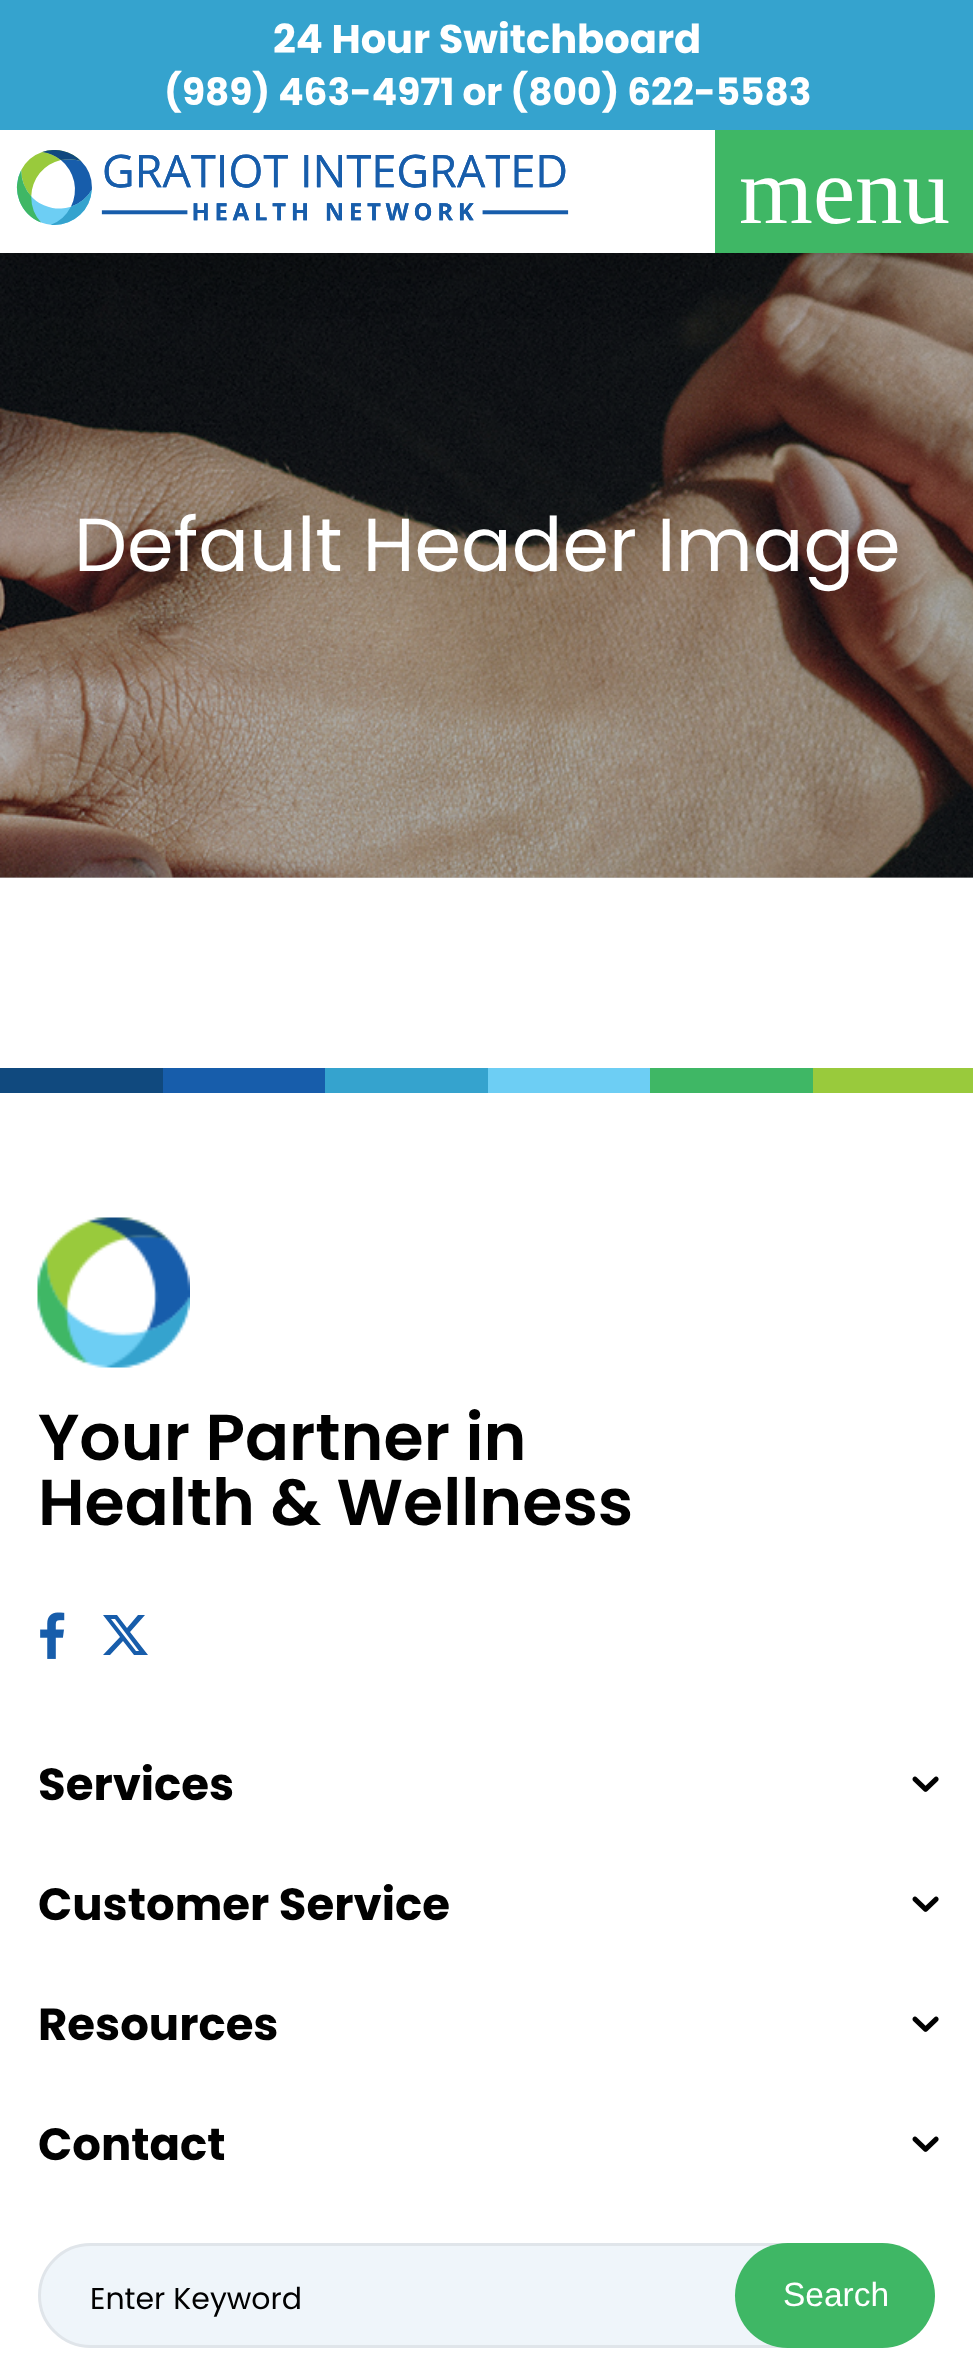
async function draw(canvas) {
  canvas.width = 973
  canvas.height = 2364
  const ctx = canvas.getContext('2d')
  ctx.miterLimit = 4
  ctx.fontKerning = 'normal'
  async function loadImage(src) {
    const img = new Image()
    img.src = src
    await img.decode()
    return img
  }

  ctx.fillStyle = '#fff'
  ctx.fillRect(0, 0, 973, 2364)
  ctx.fillStyle = '#bfbfbf'
  ctx.fillRect(0, 877, 973, 1)
  ctx.drawImage(await loadImage('image1.png'), 0, 253, 973, 625)
  ctx.fillStyle = '#00000040'
  ctx.filter = 'blur(31px)'
  ctx.beginPath()
  ctx.roundRect(0, 0, 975, 253, 38)
  ctx.fill()
  ctx.filter = 'none'
  ctx.fillStyle = '#fff'
  ctx.fillRect(0, 130, 715, 123)
  ctx.fillStyle = '#35a3ce'
  ctx.fillRect(0, 0, 973, 130)
  ctx.font = 'bold 40px Poppins'
  ctx.fillStyle = '#fff'
  ctx.fillText('24 Hour Switchboard', 273, 53)
  ctx.font = 'bold 37.5px Poppins'
  ctx.fillText('(989) 463-4971 or (800) 622-5583', 164, 105)
  ctx.drawImage(await loadImage('image0.png'), 16, 150, 553, 75)
  ctx.fillStyle = '#3fb765'
  ctx.fillRect(715, 130, 258, 123)
  ctx.font = '95px Liberation Serif'
  ctx.fillStyle = '#fff'
  ctx.fillText('menu', 739, 223)
  ctx.font = '75px Poppins'
  ctx.fillText('Default Header Image', 74, 571)
  ctx.fillStyle = '#10497e'
  ctx.fillRect(0, 1068, 163, 25)
  ctx.fillStyle = '#175dab'
  ctx.fillRect(163, 1068, 162, 25)
  ctx.fillStyle = '#35a3ce'
  ctx.fillRect(325, 1068, 163, 25)
  ctx.fillStyle = '#6dcef4'
  ctx.fillRect(488, 1068, 162, 25)
  ctx.fillStyle = '#3fb765'
  ctx.fillRect(650, 1068, 163, 25)
  ctx.fillStyle = '#99ca3c'
  ctx.fillRect(813, 1068, 160, 25)
  ctx.drawImage(await loadImage('image2.png'), 37, 1217, 153, 151)
  ctx.font = '600 65px Poppins'
  ctx.fillStyle = '#010101'
  ctx.fillText('Your Partner in', 38, 1460)
  ctx.fillText('Health & Wellness', 38, 1525)
  ctx.drawImage(await loadImage('image3.png'), 40, 1612, 25, 47)
  ctx.fillStyle = '#175dab'
  ctx.beginPath()
  ctx.moveTo(138, 1615)
  ctx.lineTo(145, 1615)
  ctx.lineTo(130, 1632)
  ctx.lineTo(148, 1655)
  ctx.lineTo(134, 1655)
  ctx.lineTo(123, 1641)
  ctx.lineTo(110, 1655)
  ctx.lineTo(103, 1655)
  ctx.lineTo(120, 1637)
  ctx.lineTo(103, 1615)
  ctx.lineTo(117, 1615)
  ctx.lineTo(127, 1628)
  ctx.closePath()
  ctx.moveTo(136, 1651)
  ctx.lineTo(139, 1651)
  ctx.lineTo(115, 1619)
  ctx.lineTo(111, 1619)
  ctx.closePath()
  ctx.fill()
  ctx.font = 'bold 45px Poppins'
  ctx.fillStyle = '#010101'
  ctx.fillText('Services', 38, 1800)
  ctx.drawImage(await loadImage('image4.png'), 912, 1776, 27, 16)
  ctx.fillText('Customer Service', 38, 1920)
  ctx.drawImage(await loadImage('image4.png'), 912, 1896, 27, 16)
  ctx.fillText('Resources', 38, 2040)
  ctx.drawImage(await loadImage('image4.png'), 912, 2016, 27, 16)
  ctx.fillText('Contact', 38, 2160)
  ctx.drawImage(await loadImage('image4.png'), 912, 2136, 27, 16)
  ctx.fillStyle = '#eff5fa'
  ctx.beginPath()
  ctx.roundRect(39.5, 2244.5, 772, 102, [51, 2.5, 2.5, 51])
  ctx.fill()
  ctx.strokeStyle = '#e0e5ea'
  ctx.lineWidth = 3
  ctx.stroke()
  ctx.font = '30px Poppins'
  ctx.fillStyle = '#010101'
  ctx.fillText('Enter Keyword', 90, 2309)
  ctx.fillStyle = '#3fb765'
  ctx.beginPath()
  ctx.roundRect(735, 2243, 200, 105, 52.5)
  ctx.fill()
  ctx.font = '33.5px Liberation Sans'
  ctx.fillStyle = '#fff'
  ctx.fillText('Search', 783, 2306)
}

draw(document.querySelector('canvas'))
